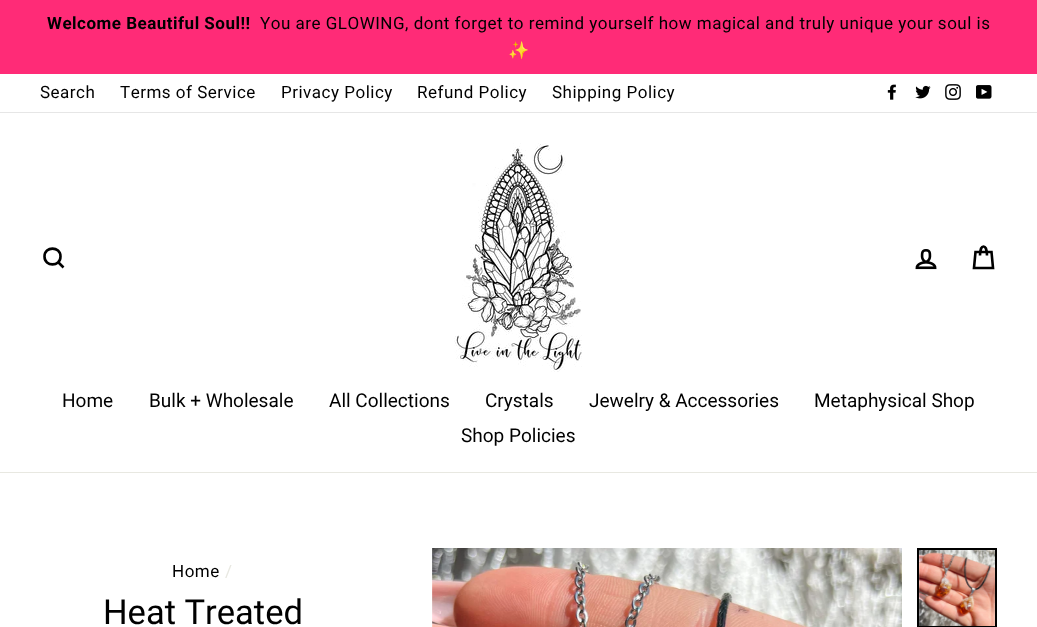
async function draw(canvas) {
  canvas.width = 1037
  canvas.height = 627
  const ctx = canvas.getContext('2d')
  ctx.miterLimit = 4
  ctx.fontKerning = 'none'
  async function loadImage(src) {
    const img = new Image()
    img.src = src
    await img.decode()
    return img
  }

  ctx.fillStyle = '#fff'
  ctx.fillRect(0, 0, 1037, 627)
  ctx.fillStyle = '#ff2b77'
  ctx.fillRect(0, 0, 1037, 74)
  ctx.letterSpacing = '0.5px'
  ctx.font = 'bold 17px Roboto'
  ctx.fillStyle = '#000'
  ctx.fillText('Welcome Beautiful Soul!!', 47, 29)
  ctx.font = '17px Roboto'
  ctx.fillText('You are GLOWING, dont forget to remind yourself how magical and truly unique your soul is', 260, 29)
  ctx.font = '17px Noto Color Emoji'
  ctx.fillText('✨', 508, 56)
  ctx.font = '17px Roboto'
  ctx.fillText('Search', 40, 98)
  ctx.fillText('Terms of Service', 120, 98)
  ctx.fillText('Privacy Policy', 281, 98)
  ctx.fillText('Refund Policy', 417, 98)
  ctx.fillText('Shipping Policy', 552, 98)
  ctx.drawImage(await loadImage('image0.png'), 887, 84, 9, 16)
  ctx.drawImage(await loadImage('image1.png'), 915, 85, 16, 14)
  ctx.drawImage(await loadImage('image2.png'), 945, 84, 16, 16)
  ctx.drawImage(await loadImage('image3.png'), 976, 85, 16, 14)
  ctx.fillStyle = '#e6e6e6'
  ctx.fillRect(0, 112, 1037, 1)
  ctx.fillStyle = '#e8e8e1'
  ctx.fillRect(0, 472, 1037, 1)
  ctx.beginPath()
  ctx.moveTo(60.5, 256.5)
  ctx.bezierCurveTo(60.5, 267, 44.5, 267, 44.5, 256.5)
  ctx.bezierCurveTo(44.5, 246, 60.5, 246, 60.5, 256.5)
  ctx.closePath()
  ctx.moveTo(63.5, 267.5)
  ctx.lineTo(58.5, 262.5)
  ctx.strokeStyle = '#000'
  ctx.lineWidth = 2.6
  ctx.stroke()
  ctx.drawImage(await loadImage('image4.png'), 454, 143, 128, 229)
  ctx.drawImage(await loadImage('image5.png'), 915, 249, 22, 21)
  ctx.beginPath()
  ctx.moveTo(980, 255.5)
  ctx.bezierCurveTo(980, 243.5, 987, 243.5, 987, 255.5)
  ctx.moveTo(975.5, 252)
  ctx.lineTo(991.5, 252)
  ctx.lineTo(993, 268)
  ctx.lineTo(974, 268)
  ctx.closePath()
  ctx.stroke()
  ctx.letterSpacing = '0px'
  ctx.font = '19px Roboto'
  ctx.fillStyle = '#000'
  ctx.fillText('Home', 62, 407)
  ctx.fillText('Bulk + Wholesale', 149, 407)
  ctx.fillText('All Collections', 329, 407)
  ctx.fillText('Crystals', 485, 407)
  ctx.fillText('Jewelry & Accessories', 589, 407)
  ctx.fillText('Metaphysical Shop', 814, 407)
  ctx.fillText('Shop Policies', 461, 442)
  ctx.letterSpacing = '0.5px'
  ctx.font = '17px Roboto'
  ctx.fillText('Home', 172, 577)
  ctx.fillStyle = '#e8e8e1'
  ctx.fillText('/', 225, 577)
  ctx.letterSpacing = '0px'
  ctx.font = '34.5px Roboto'
  ctx.fillStyle = '#000'
  ctx.fillText('Heat Treated', 103, 624)
  ctx.drawImage(await loadImage('image6.png'), 432, 548, 470, 79)
  ctx.lineWidth = 2
  ctx.strokeRect(918, 549, 78, 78)
  ctx.drawImage(await loadImage('image7.png'), 919, 550, 76, 76)
}

draw(document.querySelector('canvas'))
